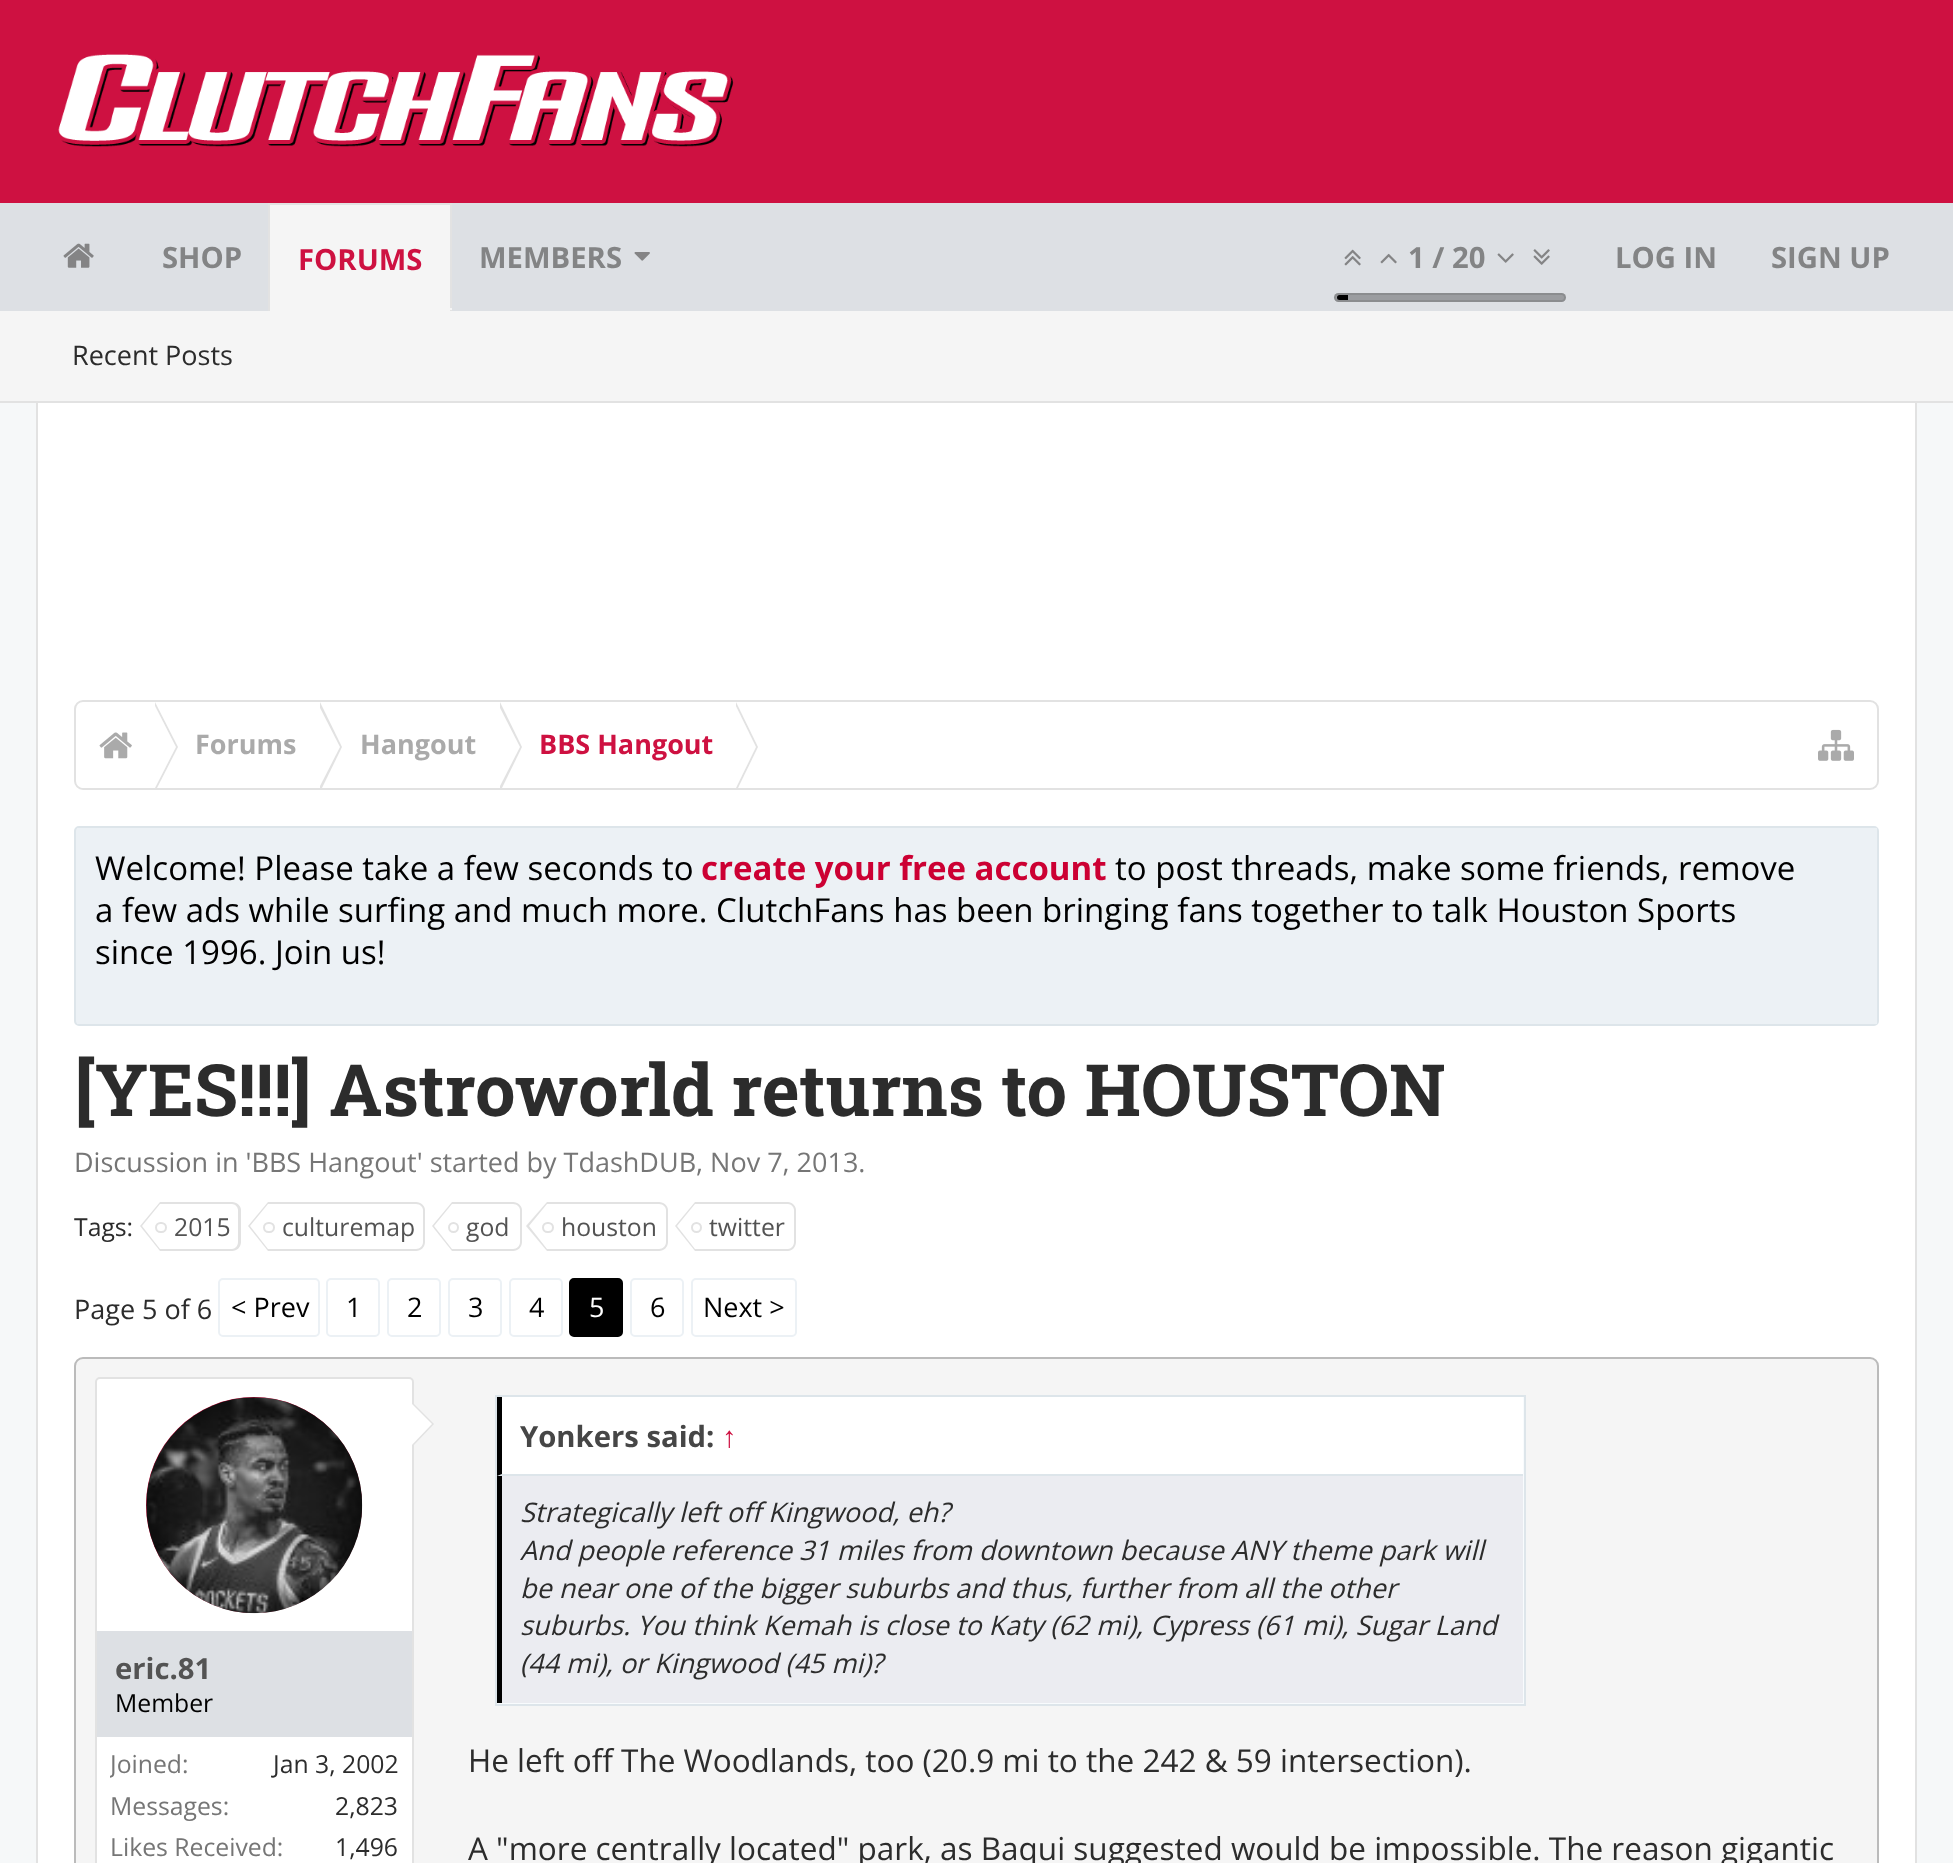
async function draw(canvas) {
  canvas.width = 1953
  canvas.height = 1863
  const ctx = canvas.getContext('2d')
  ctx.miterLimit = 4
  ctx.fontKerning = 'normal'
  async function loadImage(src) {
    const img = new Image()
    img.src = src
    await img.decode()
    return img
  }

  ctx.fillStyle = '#f6f8f9'
  ctx.fillRect(0, 0, 1953, 1863)
  ctx.fillStyle = '#ce1141'
  ctx.fillRect(0, 0, 1953, 203)
  ctx.drawImage(await loadImage('image0.png'), 58, 54, 676, 93)
  ctx.fillStyle = '#dde0e4'
  ctx.fillRect(0, 203, 1953, 108)
  ctx.drawImage(await loadImage('image1.png'), 63, 243, 31, 25)
  ctx.font = 'bold 29.25px Open Sans'
  ctx.fillStyle = '#838485'
  ctx.fillText('SHOP', 162, 268)
  ctx.fillText('MEMBERS', 479, 268)
  ctx.drawImage(await loadImage('image2.png'), 634, 252, 16, 9)
  ctx.fillStyle = '#f5f5f5'
  ctx.fillRect(270, 205, 180, 106)
  ctx.fillStyle = '#e2e2e2'
  ctx.fillRect(268, 203, 184, 2)
  ctx.fillRect(450, 203, 2, 108)
  ctx.fillStyle = '#f5f5f5'
  ctx.fillRect(268, 308, 184, 2)
  ctx.fillStyle = '#e2e2e2'
  ctx.fillRect(268, 203, 2, 108)
  ctx.fillStyle = '#ce1141'
  ctx.fillText('FORUMS', 298, 270)
  ctx.fillStyle = '#f5f5f5'
  ctx.fillRect(0, 311, 1953, 90)
  ctx.fillStyle = '#e2e2e2'
  ctx.fillRect(0, 401, 1953, 2)
  ctx.font = '27px Open Sans'
  ctx.fillStyle = '#2c2c2c'
  ctx.fillText('Recent Posts', 72, 365)
  ctx.drawImage(await loadImage('image3.png'), 1344, 249, 17, 17)
  ctx.drawImage(await loadImage('image4.png'), 1380, 253, 17, 11)
  ctx.font = 'bold 29.25px Open Sans'
  ctx.fillStyle = '#838485'
  ctx.fillText('1 / 20', 1408, 268)
  ctx.drawImage(await loadImage('image5.png'), 1497, 253, 17, 10)
  ctx.drawImage(await loadImage('image6.png'), 1533, 249, 17, 16)
  ctx.fillStyle = '#9b9da0'
  ctx.beginPath()
  ctx.roundRect(1334, 293, 232, 9, 4.5)
  ctx.fill()
  ctx.beginPath()
  ctx.roundRect(1335, 294, 230, 7, 3.5)
  ctx.strokeStyle = '#0000001a'
  ctx.lineWidth = 2
  ctx.stroke()
  ctx.fillStyle = '#000'
  ctx.beginPath()
  ctx.roundRect(1337, 295, 11, 5, [2.5, 0, 0, 2.5])
  ctx.fill()
  ctx.fillStyle = '#838485'
  ctx.fillText('LOG IN', 1615, 268)
  ctx.fillText('SIGN UP', 1771, 268)
  ctx.fillStyle = '#fff'
  ctx.fillRect(38, 403, 1877, 1460)
  ctx.fillStyle = '#e2e2e2'
  ctx.beginPath()
  ctx.moveTo(36, 403)
  ctx.lineTo(1917, 403)
  ctx.lineTo(1917, 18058)
  ctx.bezierCurveTo(1917, 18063, 1913, 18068, 1908, 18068)
  ctx.lineTo(45, 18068)
  ctx.bezierCurveTo(40, 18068, 36, 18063, 36, 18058)
  ctx.closePath()
  ctx.moveTo(38, 403)
  ctx.lineTo(1915, 403)
  ctx.lineTo(1915, 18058)
  ctx.bezierCurveTo(1915, 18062, 1912, 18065, 1908, 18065)
  ctx.lineTo(45, 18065)
  ctx.bezierCurveTo(41, 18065, 38, 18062, 38, 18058)
  ctx.closePath()
  ctx.fill('evenodd')
  ctx.beginPath()
  ctx.roundRect(75, 701, 1803, 88, 8)
  ctx.strokeStyle = '#e2e2e2'
  ctx.stroke()
  ctx.save()
  ctx.beginPath()
  ctx.roundRect(77, 702, 1800, 86, 7)
  ctx.clip()
  ctx.fillStyle = '#fff'
  ctx.beginPath()
  ctx.roundRect(77, 702, 78, 88, [9, 0, 0, 9])
  ctx.fill()
  ctx.restore()
  ctx.drawImage(await loadImage('image7.png'), 99, 732, 33, 27)
  ctx.beginPath()
  ctx.moveTo(157, 788)
  ctx.lineTo(155, 788)
  ctx.lineTo(155, 702)
  ctx.lineTo(178, 747)
  ctx.closePath()
  ctx.fill()
  ctx.fillStyle = '#fff'
  ctx.beginPath()
  ctx.moveTo(155, 788)
  ctx.lineTo(153, 788)
  ctx.lineTo(153, 702)
  ctx.lineTo(176, 747)
  ctx.closePath()
  ctx.fill()
  ctx.font = 'bold 27px Open Sans'
  ctx.fillStyle = '#aaa'
  ctx.fillText('Forums', 195, 754)
  ctx.fillStyle = '#e2e2e2'
  ctx.beginPath()
  ctx.moveTo(322, 788)
  ctx.lineTo(320, 788)
  ctx.lineTo(320, 702)
  ctx.lineTo(342, 747)
  ctx.closePath()
  ctx.fill()
  ctx.fillStyle = '#fff'
  ctx.beginPath()
  ctx.moveTo(319, 788)
  ctx.lineTo(317, 788)
  ctx.lineTo(317, 702)
  ctx.lineTo(340, 747)
  ctx.closePath()
  ctx.fill()
  ctx.fillStyle = '#aaa'
  ctx.fillText('Hangout', 360, 754)
  ctx.fillStyle = '#e2e2e2'
  ctx.beginPath()
  ctx.moveTo(502, 788)
  ctx.lineTo(500, 788)
  ctx.lineTo(500, 702)
  ctx.lineTo(522, 747)
  ctx.closePath()
  ctx.fill()
  ctx.fillStyle = '#fff'
  ctx.beginPath()
  ctx.moveTo(499, 788)
  ctx.lineTo(497, 788)
  ctx.lineTo(497, 702)
  ctx.lineTo(520, 747)
  ctx.closePath()
  ctx.fill()
  ctx.fillStyle = '#ce1141'
  ctx.fillText('BBS Hangout', 539, 754)
  ctx.fillStyle = '#e2e2e2'
  ctx.beginPath()
  ctx.moveTo(738, 788)
  ctx.lineTo(736, 788)
  ctx.lineTo(736, 702)
  ctx.lineTo(758, 747)
  ctx.closePath()
  ctx.fill()
  ctx.fillStyle = '#fff'
  ctx.beginPath()
  ctx.moveTo(736, 788)
  ctx.lineTo(734, 788)
  ctx.lineTo(734, 702)
  ctx.lineTo(756, 747)
  ctx.closePath()
  ctx.fill()
  ctx.drawImage(await loadImage('image8.png'), 1818, 729, 36, 32)
  ctx.fillStyle = '#ecf1f5'
  ctx.beginPath()
  ctx.roundRect(75, 827, 1803, 198, 4)
  ctx.fill()
  ctx.strokeStyle = '#dde5ea'
  ctx.stroke()
  ctx.fillRect(77, 828, 1800, 196)
  ctx.font = '33px Open Sans'
  ctx.fillStyle = '#000'
  ctx.fillText('Welcome! Please take a few seconds to', 95, 880)
  ctx.font = 'bold 33px Open Sans'
  ctx.fillStyle = '#c03'
  ctx.fillText('create your free account', 701, 880)
  ctx.font = '33px Open Sans'
  ctx.fillStyle = '#000'
  ctx.fillText('to post threads, make some friends, remove', 1115, 880)
  ctx.fillText('a few ads while surfing and much more. ClutchFans has been bringing fans together to talk Houston Sports', 95, 922)
  ctx.fillText('since 1996. Join us!', 95, 964)
  ctx.font = 'bold 72px Roboto Slab'
  ctx.fillStyle = '#2c2c2c'
  ctx.fillText('[YES!!!] Astroworld returns to HOUSTON', 74, 1116)
  ctx.font = '27px Open Sans'
  ctx.fillStyle = '#767676'
  ctx.fillText('Discussion in \'BBS Hangout\' started by TdashDUB, Nov 7, 2013.', 74, 1172)
  ctx.font = '24.75px Open Sans'
  ctx.fillStyle = '#2c2c2c'
  ctx.fillText('Tags:', 74, 1236)
  ctx.fillStyle = '#e2e2e2'
  ctx.beginPath()
  ctx.moveTo(160, 1202)
  ctx.lineTo(232, 1202)
  ctx.bezierCurveTo(237, 1202, 241, 1206, 241, 1210)
  ctx.lineTo(241, 1242)
  ctx.bezierCurveTo(241, 1247, 237, 1251, 232, 1251)
  ctx.lineTo(160, 1251)
  ctx.closePath()
  ctx.moveTo(160, 1204)
  ctx.lineTo(232, 1204)
  ctx.bezierCurveTo(235, 1204, 238, 1207, 238, 1210)
  ctx.lineTo(238, 1242)
  ctx.bezierCurveTo(238, 1246, 235, 1249, 232, 1249)
  ctx.lineTo(160, 1249)
  ctx.closePath()
  ctx.fill('evenodd')
  ctx.beginPath()
  ctx.moveTo(160, 1202)
  ctx.lineTo(160, 1251)
  ctx.lineTo(140, 1226)
  ctx.closePath()
  ctx.fill()
  ctx.fillStyle = '#fff'
  ctx.beginPath()
  ctx.moveTo(160, 1204)
  ctx.lineTo(160, 1249)
  ctx.lineTo(142, 1226)
  ctx.closePath()
  ctx.fill()
  ctx.beginPath()
  ctx.roundRect(156, 1223, 10, 9, 4.5)
  ctx.strokeStyle = '#e2e2e2'
  ctx.stroke()
  ctx.fillStyle = '#535353'
  ctx.fillText('2015', 174, 1236)
  ctx.fillStyle = '#e2e2e2'
  ctx.beginPath()
  ctx.moveTo(268, 1202)
  ctx.lineTo(416, 1202)
  ctx.bezierCurveTo(421, 1202, 425, 1206, 425, 1210)
  ctx.lineTo(425, 1242)
  ctx.bezierCurveTo(425, 1247, 421, 1251, 416, 1251)
  ctx.lineTo(268, 1251)
  ctx.closePath()
  ctx.moveTo(268, 1204)
  ctx.lineTo(416, 1204)
  ctx.bezierCurveTo(420, 1204, 423, 1207, 423, 1210)
  ctx.lineTo(423, 1242)
  ctx.bezierCurveTo(423, 1246, 420, 1249, 416, 1249)
  ctx.lineTo(268, 1249)
  ctx.closePath()
  ctx.fill('evenodd')
  ctx.beginPath()
  ctx.moveTo(268, 1202)
  ctx.lineTo(268, 1251)
  ctx.lineTo(248, 1226)
  ctx.closePath()
  ctx.fill()
  ctx.fillStyle = '#fff'
  ctx.beginPath()
  ctx.moveTo(268, 1204)
  ctx.lineTo(268, 1249)
  ctx.lineTo(250, 1226)
  ctx.closePath()
  ctx.fill()
  ctx.beginPath()
  ctx.roundRect(264, 1223, 10, 9, 4.5)
  ctx.stroke()
  ctx.fillStyle = '#535353'
  ctx.fillText('culturemap', 282, 1236)
  ctx.fillStyle = '#e2e2e2'
  ctx.beginPath()
  ctx.moveTo(452, 1202)
  ctx.lineTo(513, 1202)
  ctx.bezierCurveTo(518, 1202, 522, 1206, 522, 1210)
  ctx.lineTo(522, 1242)
  ctx.bezierCurveTo(522, 1247, 518, 1251, 513, 1251)
  ctx.lineTo(452, 1251)
  ctx.closePath()
  ctx.moveTo(452, 1204)
  ctx.lineTo(513, 1204)
  ctx.bezierCurveTo(517, 1204, 520, 1207, 520, 1210)
  ctx.lineTo(520, 1242)
  ctx.bezierCurveTo(520, 1246, 517, 1249, 513, 1249)
  ctx.lineTo(452, 1249)
  ctx.closePath()
  ctx.fill('evenodd')
  ctx.beginPath()
  ctx.moveTo(452, 1202)
  ctx.lineTo(452, 1251)
  ctx.lineTo(432, 1226)
  ctx.closePath()
  ctx.fill()
  ctx.fillStyle = '#fff'
  ctx.beginPath()
  ctx.moveTo(452, 1204)
  ctx.lineTo(452, 1249)
  ctx.lineTo(434, 1226)
  ctx.closePath()
  ctx.fill()
  ctx.beginPath()
  ctx.arc(453.5, 1227.5, 4.5, 0, 2 * Math.PI)
  ctx.stroke()
  ctx.fillStyle = '#535353'
  ctx.fillText('god', 466, 1236)
  ctx.fillStyle = '#e2e2e2'
  ctx.beginPath()
  ctx.moveTo(547, 1202)
  ctx.lineTo(659, 1202)
  ctx.bezierCurveTo(664, 1202, 668, 1206, 668, 1210)
  ctx.lineTo(668, 1242)
  ctx.bezierCurveTo(668, 1247, 664, 1251, 659, 1251)
  ctx.lineTo(547, 1251)
  ctx.closePath()
  ctx.moveTo(547, 1204)
  ctx.lineTo(659, 1204)
  ctx.bezierCurveTo(663, 1204, 666, 1207, 666, 1210)
  ctx.lineTo(666, 1242)
  ctx.bezierCurveTo(666, 1246, 663, 1249, 659, 1249)
  ctx.lineTo(547, 1249)
  ctx.closePath()
  ctx.fill('evenodd')
  ctx.beginPath()
  ctx.moveTo(547, 1202)
  ctx.lineTo(547, 1251)
  ctx.lineTo(526, 1226)
  ctx.closePath()
  ctx.fill()
  ctx.fillStyle = '#fff'
  ctx.beginPath()
  ctx.moveTo(547, 1204)
  ctx.lineTo(547, 1249)
  ctx.lineTo(529, 1226)
  ctx.closePath()
  ctx.fill()
  ctx.beginPath()
  ctx.roundRect(543, 1223, 10, 9, 4.5)
  ctx.stroke()
  ctx.fillStyle = '#535353'
  ctx.fillText('houston', 561, 1236)
  ctx.fillStyle = '#e2e2e2'
  ctx.beginPath()
  ctx.moveTo(695, 1202)
  ctx.lineTo(788, 1202)
  ctx.bezierCurveTo(792, 1202, 796, 1206, 796, 1210)
  ctx.lineTo(796, 1242)
  ctx.bezierCurveTo(796, 1247, 792, 1251, 788, 1251)
  ctx.lineTo(695, 1251)
  ctx.closePath()
  ctx.moveTo(695, 1204)
  ctx.lineTo(788, 1204)
  ctx.bezierCurveTo(791, 1204, 794, 1207, 794, 1210)
  ctx.lineTo(794, 1242)
  ctx.bezierCurveTo(794, 1246, 791, 1249, 788, 1249)
  ctx.lineTo(695, 1249)
  ctx.closePath()
  ctx.fill('evenodd')
  ctx.beginPath()
  ctx.moveTo(695, 1202)
  ctx.lineTo(695, 1251)
  ctx.lineTo(675, 1226)
  ctx.closePath()
  ctx.fill()
  ctx.fillStyle = '#fff'
  ctx.beginPath()
  ctx.moveTo(695, 1204)
  ctx.lineTo(695, 1249)
  ctx.lineTo(677, 1226)
  ctx.closePath()
  ctx.fill()
  ctx.beginPath()
  ctx.arc(696.5, 1227.5, 4.5, 0, 2 * Math.PI)
  ctx.stroke()
  ctx.fillStyle = '#535353'
  ctx.fillText('twitter', 709, 1236)
  ctx.font = '27px Open Sans'
  ctx.fillStyle = '#2c2c2c'
  ctx.fillText('Page 5 of 6', 74, 1319)
  ctx.beginPath()
  ctx.roundRect(219, 1279, 100, 57, 4)
  ctx.strokeStyle = '#ecf1f5'
  ctx.stroke()
  ctx.fillStyle = '#000'
  ctx.fillText('< Prev', 231, 1317)
  ctx.beginPath()
  ctx.roundRect(327, 1279, 52, 57, 4)
  ctx.stroke()
  ctx.fillText('1', 346, 1317)
  ctx.beginPath()
  ctx.roundRect(388, 1279, 52, 57, 4)
  ctx.stroke()
  ctx.fillText('2', 407, 1317)
  ctx.beginPath()
  ctx.roundRect(449, 1279, 52, 57, 4)
  ctx.stroke()
  ctx.fillText('3', 468, 1317)
  ctx.beginPath()
  ctx.roundRect(510, 1279, 52, 57, 4)
  ctx.stroke()
  ctx.fillText('4', 529, 1317)
  ctx.beginPath()
  ctx.roundRect(570, 1279, 52, 57, 4)
  ctx.fill()
  ctx.strokeStyle = '#000'
  ctx.stroke()
  ctx.fillStyle = '#fff'
  ctx.fillText('5', 589, 1317)
  ctx.beginPath()
  ctx.roundRect(631, 1279, 52, 57, 4)
  ctx.strokeStyle = '#ecf1f5'
  ctx.stroke()
  ctx.fillStyle = '#000'
  ctx.fillText('6', 650, 1317)
  ctx.beginPath()
  ctx.roundRect(692, 1279, 104, 57, 4)
  ctx.stroke()
  ctx.fillText('Next >', 703, 1317)
  ctx.fillStyle = '#f5f5f5'
  ctx.beginPath()
  ctx.roundRect(75, 1358, 1803, 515, 8)
  ctx.fill()
  ctx.strokeStyle = '#bbb'
  ctx.stroke()
  ctx.fillStyle = '#fff'
  ctx.beginPath()
  ctx.roundRect(96, 1378, 317, 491, 4)
  ctx.fill()
  ctx.strokeStyle = '#e2e2e2'
  ctx.stroke()
  ctx.fillStyle = '#ce1141'
  ctx.beginPath()
  ctx.arc(254, 1505, 108, 0, 2 * Math.PI)
  ctx.fill()
  ctx.drawImage(await loadImage('image9.png'), 146, 1397, 217, 217)
  ctx.fillStyle = '#e2e2e2'
  ctx.beginPath()
  ctx.moveTo(412, 1447)
  ctx.lineTo(412, 1402)
  ctx.lineTo(434, 1424)
  ctx.closePath()
  ctx.fill()
  ctx.fillStyle = '#fff'
  ctx.beginPath()
  ctx.moveTo(410, 1447)
  ctx.lineTo(410, 1402)
  ctx.lineTo(432, 1424)
  ctx.closePath()
  ctx.fill()
  ctx.fillStyle = '#dde0e4'
  ctx.fillRect(97, 1631, 315, 106)
  ctx.font = 'bold 29.25px Open Sans'
  ctx.fillStyle = '#535353'
  ctx.fillText('eric.81', 115, 1679)
  ctx.font = '24.75px Open Sans'
  ctx.fillStyle = '#000'
  ctx.fillText('Member', 115, 1712)
  ctx.save()
  ctx.beginPath()
  ctx.rect(110, 1746, 288, 36)
  ctx.clip()
  ctx.fillStyle = '#767676'
  ctx.fillText('Joined:', 110, 1773)
  ctx.restore()
  ctx.fillStyle = '#2c2c2c'
  ctx.fillText('Jan 3, 2002', 273, 1773)
  ctx.fillStyle = '#767676'
  ctx.fillText('Messages:', 110, 1815)
  ctx.fillStyle = '#2c2c2c'
  ctx.fillText('2,823', 335, 1815)
  ctx.fillStyle = '#767676'
  ctx.fillText('Likes Received:', 110, 1856)
  ctx.fillStyle = '#2c2c2c'
  ctx.fillText('1,496', 335, 1856)
  ctx.fillStyle = '#f8fbfd'
  ctx.beginPath()
  ctx.rect(496, 1396, 1029, 309)
  ctx.fill()
  ctx.strokeStyle = '#dde5ea'
  ctx.stroke()
  ctx.fillStyle = '#fff'
  ctx.fillRect(497, 1397, 1026, 79)
  ctx.fillStyle = '#dde5ea'
  ctx.beginPath()
  ctx.moveTo(1523, 1476)
  ctx.lineTo(497, 1476)
  ctx.lineTo(502, 1474)
  ctx.lineTo(1523, 1474)
  ctx.closePath()
  ctx.fill()
  ctx.fillStyle = '#000'
  ctx.beginPath()
  ctx.moveTo(497, 1476)
  ctx.lineTo(497, 1397)
  ctx.lineTo(502, 1397)
  ctx.lineTo(502, 1474)
  ctx.closePath()
  ctx.fill()
  ctx.font = 'bold 29.25px Open Sans'
  ctx.fillStyle = '#464646'
  ctx.fillText('Yonkers said:', 520, 1447)
  ctx.font = 'bold 29.25px Liberation Sans'
  ctx.fillStyle = '#ce1141'
  ctx.fillText('↑', 722, 1447)
  ctx.fillStyle = '#ebecf1'
  ctx.fillRect(502, 1476, 1021, 227)
  ctx.fillStyle = '#000'
  ctx.fillRect(497, 1476, 5, 227)
  ctx.font = 'italic 27px Open Sans'
  ctx.fillStyle = '#2c2c2c'
  ctx.fillText('Strategically left off Kingwood, eh?', 520, 1522)
  ctx.fillText('And people reference 31 miles from downtown because ANY theme park will', 520, 1560)
  ctx.fillText('be near one of the bigger suburbs and thus, further from all the other', 520, 1598)
  ctx.fillText('suburbs. You think Kemah is close to Katy (62 mi), Cypress (61 mi), Sugar Land', 520, 1635)
  ctx.fillText('(44 mi), or Kingwood (45 mi)?', 520, 1673)
  ctx.font = '31.5px Open Sans'
  ctx.fillText('He left off The Woodlands, too (20.9 mi to the 242 & 59 intersection).', 468, 1772)
  ctx.fillText('A "more centrally located" park, as Baqui suggested would be impossible. The reason gigantic', 468, 1860)
}

draw(document.querySelector('canvas'))
